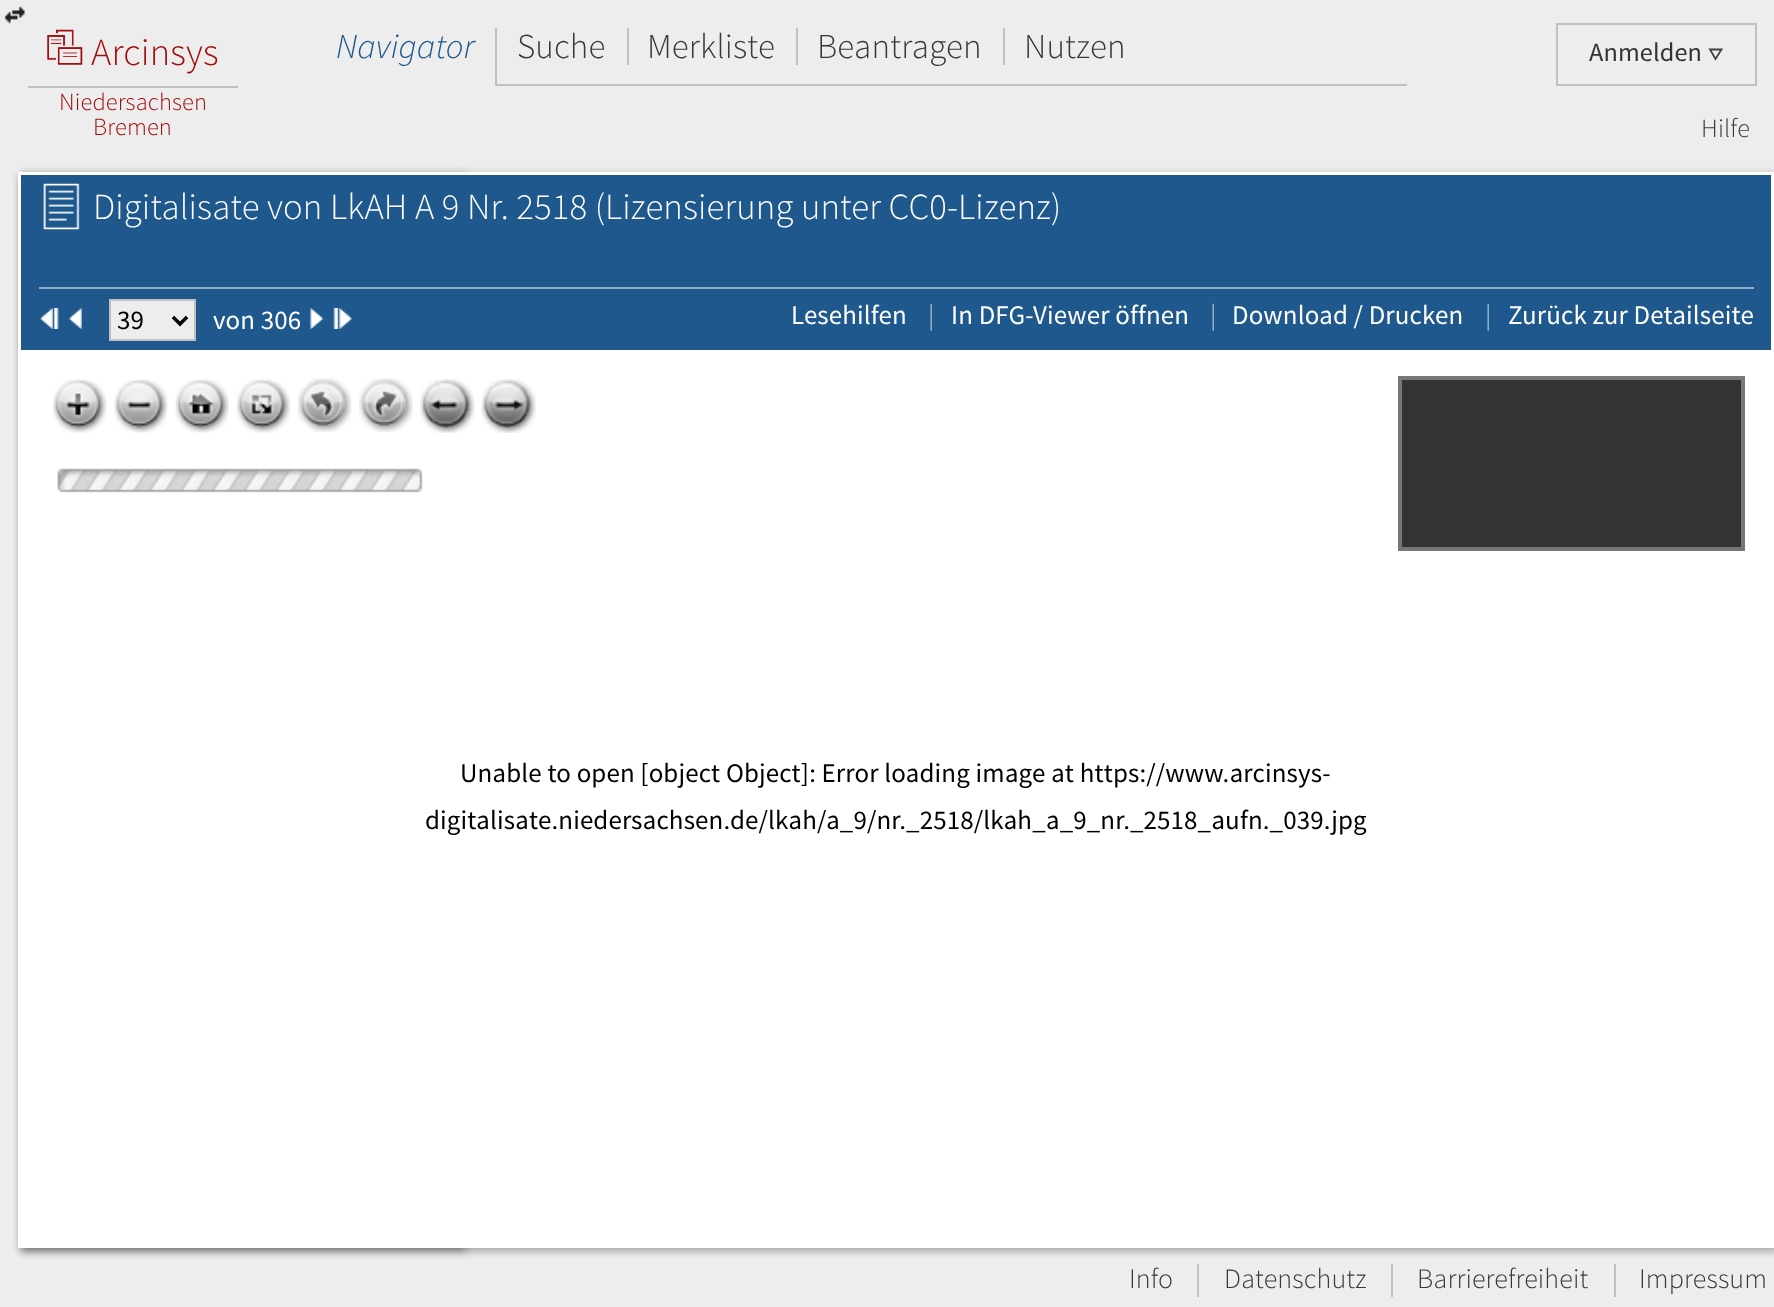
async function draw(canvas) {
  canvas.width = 1774
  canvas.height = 1307
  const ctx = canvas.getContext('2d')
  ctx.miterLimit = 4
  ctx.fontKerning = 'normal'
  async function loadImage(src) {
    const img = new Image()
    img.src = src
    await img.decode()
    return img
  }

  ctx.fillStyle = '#ededed'
  ctx.fillRect(0, 0, 1774, 1307)
  ctx.drawImage(await loadImage('image0.png'), 4, 6, 21, 18)
  ctx.drawImage(await loadImage('image1.png'), 47, 29, 36, 36)
  ctx.letterSpacing = '0.13px'
  ctx.font = '300 38.5px Source Sans Pro'
  ctx.fillStyle = '#a30f0f'
  ctx.fillText('Arcinsys', 91, 65)
  ctx.fillStyle = '#c0c0c0'
  ctx.fillRect(28, 86, 210, 2)
  ctx.font = '300 24.5px Source Sans Pro'
  ctx.fillStyle = '#a30f0f'
  ctx.fillText('Niedersachsen', 59, 110)
  ctx.fillText('Bremen', 93, 135)
  ctx.fillStyle = '#c0c0c0'
  ctx.fillRect(495, 84, 912, 2)
  ctx.font = 'italic 300 35px Source Sans Pro'
  ctx.fillStyle = '#1e588c'
  ctx.fillText('Navigator', 336, 58)
  ctx.fillStyle = '#c0c0c0'
  ctx.fillRect(495, 28, 2, 56)
  ctx.font = '300 35px Source Sans Pro'
  ctx.fillStyle = '#393939'
  ctx.fillText('Suche', 517, 58)
  ctx.fillStyle = '#c0c0c0'
  ctx.fillRect(627, 28, 2, 37)
  ctx.fillStyle = '#393939'
  ctx.fillText('Merkliste', 647, 58)
  ctx.fillStyle = '#c0c0c0'
  ctx.fillRect(796, 28, 2, 37)
  ctx.fillStyle = '#393939'
  ctx.fillText('Beantragen', 817, 58)
  ctx.fillStyle = '#c0c0c0'
  ctx.fillRect(1003, 28, 2, 37)
  ctx.fillStyle = '#393939'
  ctx.fillText('Nutzen', 1024, 58)
  ctx.strokeStyle = '#c0c0c0'
  ctx.lineWidth = 2
  ctx.strokeRect(1557, 24, 199, 61)
  ctx.font = '26.25px Source Sans Pro'
  ctx.fillStyle = '#333'
  ctx.fillText('Anmelden', 1589, 61)
  ctx.beginPath()
  ctx.moveTo(1710, 49.5)
  ctx.lineTo(1721.5, 49.5)
  ctx.lineTo(1715.5, 59)
  ctx.closePath()
  ctx.strokeStyle = '#424242'
  ctx.lineWidth = 1.8
  ctx.stroke()
  ctx.font = '300 26.25px Source Sans Pro'
  ctx.fillStyle = '#393939'
  ctx.fillText('Hilfe', 1701, 137)
  ctx.fillStyle = '#00000054'
  ctx.filter = 'blur(4.5px)'
  ctx.beginPath()
  ctx.rect(21, 175, 445, 1076)
  ctx.fill()
  ctx.filter = 'none'
  ctx.filter = 'blur(4.5px)'
  ctx.beginPath()
  ctx.rect(21, 175, 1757, 1076)
  ctx.fill()
  ctx.filter = 'none'
  ctx.fillStyle = '#fff'
  ctx.fillRect(18, 172, 1756, 1076)
  ctx.fillStyle = '#1e588c'
  ctx.fillRect(21, 175, 1750, 175)
  ctx.drawImage(await loadImage('image2.png'), 43, 183, 37, 47)
  ctx.font = '300 36.75px Source Sans Pro'
  ctx.fillStyle = '#fff'
  ctx.fillText('Digitalisate von LkAH A 9 Nr. 2518 (Lizensierung unter CC0-Lizenz)', 93, 219)
  ctx.fillStyle = '#8facc6'
  ctx.fillRect(39, 287, 1715, 2)
  ctx.drawImage(await loadImage('image3.png'), 39, 308, 20, 21)
  ctx.drawImage(await loadImage('image4.png'), 68, 308, 14, 21)
  ctx.fillStyle = '#ededed'
  ctx.beginPath()
  ctx.rect(110, 300, 85, 40)
  ctx.fill()
  ctx.strokeStyle = '#c0c0c0'
  ctx.lineWidth = 2
  ctx.stroke()
  ctx.beginPath()
  ctx.moveTo(173, 317)
  ctx.lineTo(180, 324)
  ctx.lineTo(187, 317)
  ctx.strokeStyle = '#000'
  ctx.lineWidth = 3.5
  ctx.stroke()
  ctx.letterSpacing = '0px'
  ctx.font = '27px Source Sans Pro'
  ctx.fillStyle = '#000'
  ctx.fillText('39', 117, 329)
  ctx.letterSpacing = '0.13px'
  ctx.font = '26.95px Source Sans Pro'
  ctx.fillStyle = '#fff'
  ctx.fillText('von 306', 213, 329)
  ctx.drawImage(await loadImage('image5.png'), 310, 308, 14, 21)
  ctx.drawImage(await loadImage('image6.png'), 333, 308, 20, 21)
  ctx.fillText('Lesehilfen', 791, 324)
  ctx.fillStyle = '#8facc6'
  ctx.fillText('|', 928, 324)
  ctx.fillStyle = '#fff'
  ctx.fillText('In DFG-Viewer öffnen', 951, 324)
  ctx.fillStyle = '#8facc6'
  ctx.fillText('|', 1210, 324)
  ctx.fillStyle = '#fff'
  ctx.fillText('Download / Drucken', 1232, 324)
  ctx.fillStyle = '#8facc6'
  ctx.fillText('|', 1485, 324)
  ctx.fillStyle = '#fff'
  ctx.fillText('Zurück zur Detailseite', 1508, 324)
  ctx.drawImage(await loadImage('image7.png'), 57, 468, 366, 25)
  ctx.drawImage(await loadImage('image8.png'), 53, 379, 54, 54)
  ctx.drawImage(await loadImage('image9.png'), 53, 380, 53, 52)
  ctx.drawImage(await loadImage('image10.png'), 114, 379, 54, 54)
  ctx.drawImage(await loadImage('image11.png'), 115, 380, 52, 52)
  ctx.drawImage(await loadImage('image12.png'), 175, 379, 54, 54)
  ctx.drawImage(await loadImage('image13.png'), 176, 380, 53, 52)
  ctx.drawImage(await loadImage('image14.png'), 236, 379, 55, 54)
  ctx.drawImage(await loadImage('image15.png'), 237, 380, 53, 52)
  ctx.drawImage(await loadImage('image17.png'), 298, 378, 53, 54)
  ctx.drawImage(await loadImage('image16.png'), 297, 378, 55, 54)
  ctx.drawImage(await loadImage('image18.png'), 359, 378, 54, 54)
  ctx.drawImage(await loadImage('image19.png'), 359, 378, 54, 54)
  ctx.drawImage(await loadImage('image20.png'), 420, 379, 55, 54)
  ctx.drawImage(await loadImage('image21.png'), 420, 379, 55, 54)
  ctx.drawImage(await loadImage('image22.png'), 481, 379, 55, 54)
  ctx.drawImage(await loadImage('image23.png'), 481, 379, 55, 54)
  ctx.fillStyle = '#333'
  ctx.beginPath()
  ctx.rect(1400, 378, 343, 171)
  ctx.fill()
  ctx.strokeStyle = '#777'
  ctx.lineWidth = 4
  ctx.stroke()
  ctx.fillStyle = '#000'
  ctx.fillText('Unable to open [object Object]: Error loading image at https://www.arcinsys-', 460, 782)
  ctx.fillText('digitalisate.niedersachsen.de/lkah/a_9/nr._2518/lkah_a_9_nr._2518_aufn._039.jpg', 425, 829)
  ctx.font = '300 28px Source Sans Pro'
  ctx.fillStyle = '#393939'
  ctx.fillText('Info', 1129, 1288)
  ctx.fillStyle = '#c0c0c0'
  ctx.fillRect(1197, 1264, 2, 33)
  ctx.fillStyle = '#393939'
  ctx.fillText('Datenschutz', 1224, 1288)
  ctx.fillStyle = '#c0c0c0'
  ctx.fillRect(1391, 1264, 2, 33)
  ctx.fillStyle = '#393939'
  ctx.fillText('Barrierefreiheit', 1417, 1288)
  ctx.fillStyle = '#c0c0c0'
  ctx.fillRect(1614, 1264, 2, 33)
  ctx.fillStyle = '#393939'
  ctx.fillText('Impressum', 1639, 1288)
}

draw(document.querySelector('canvas'))
